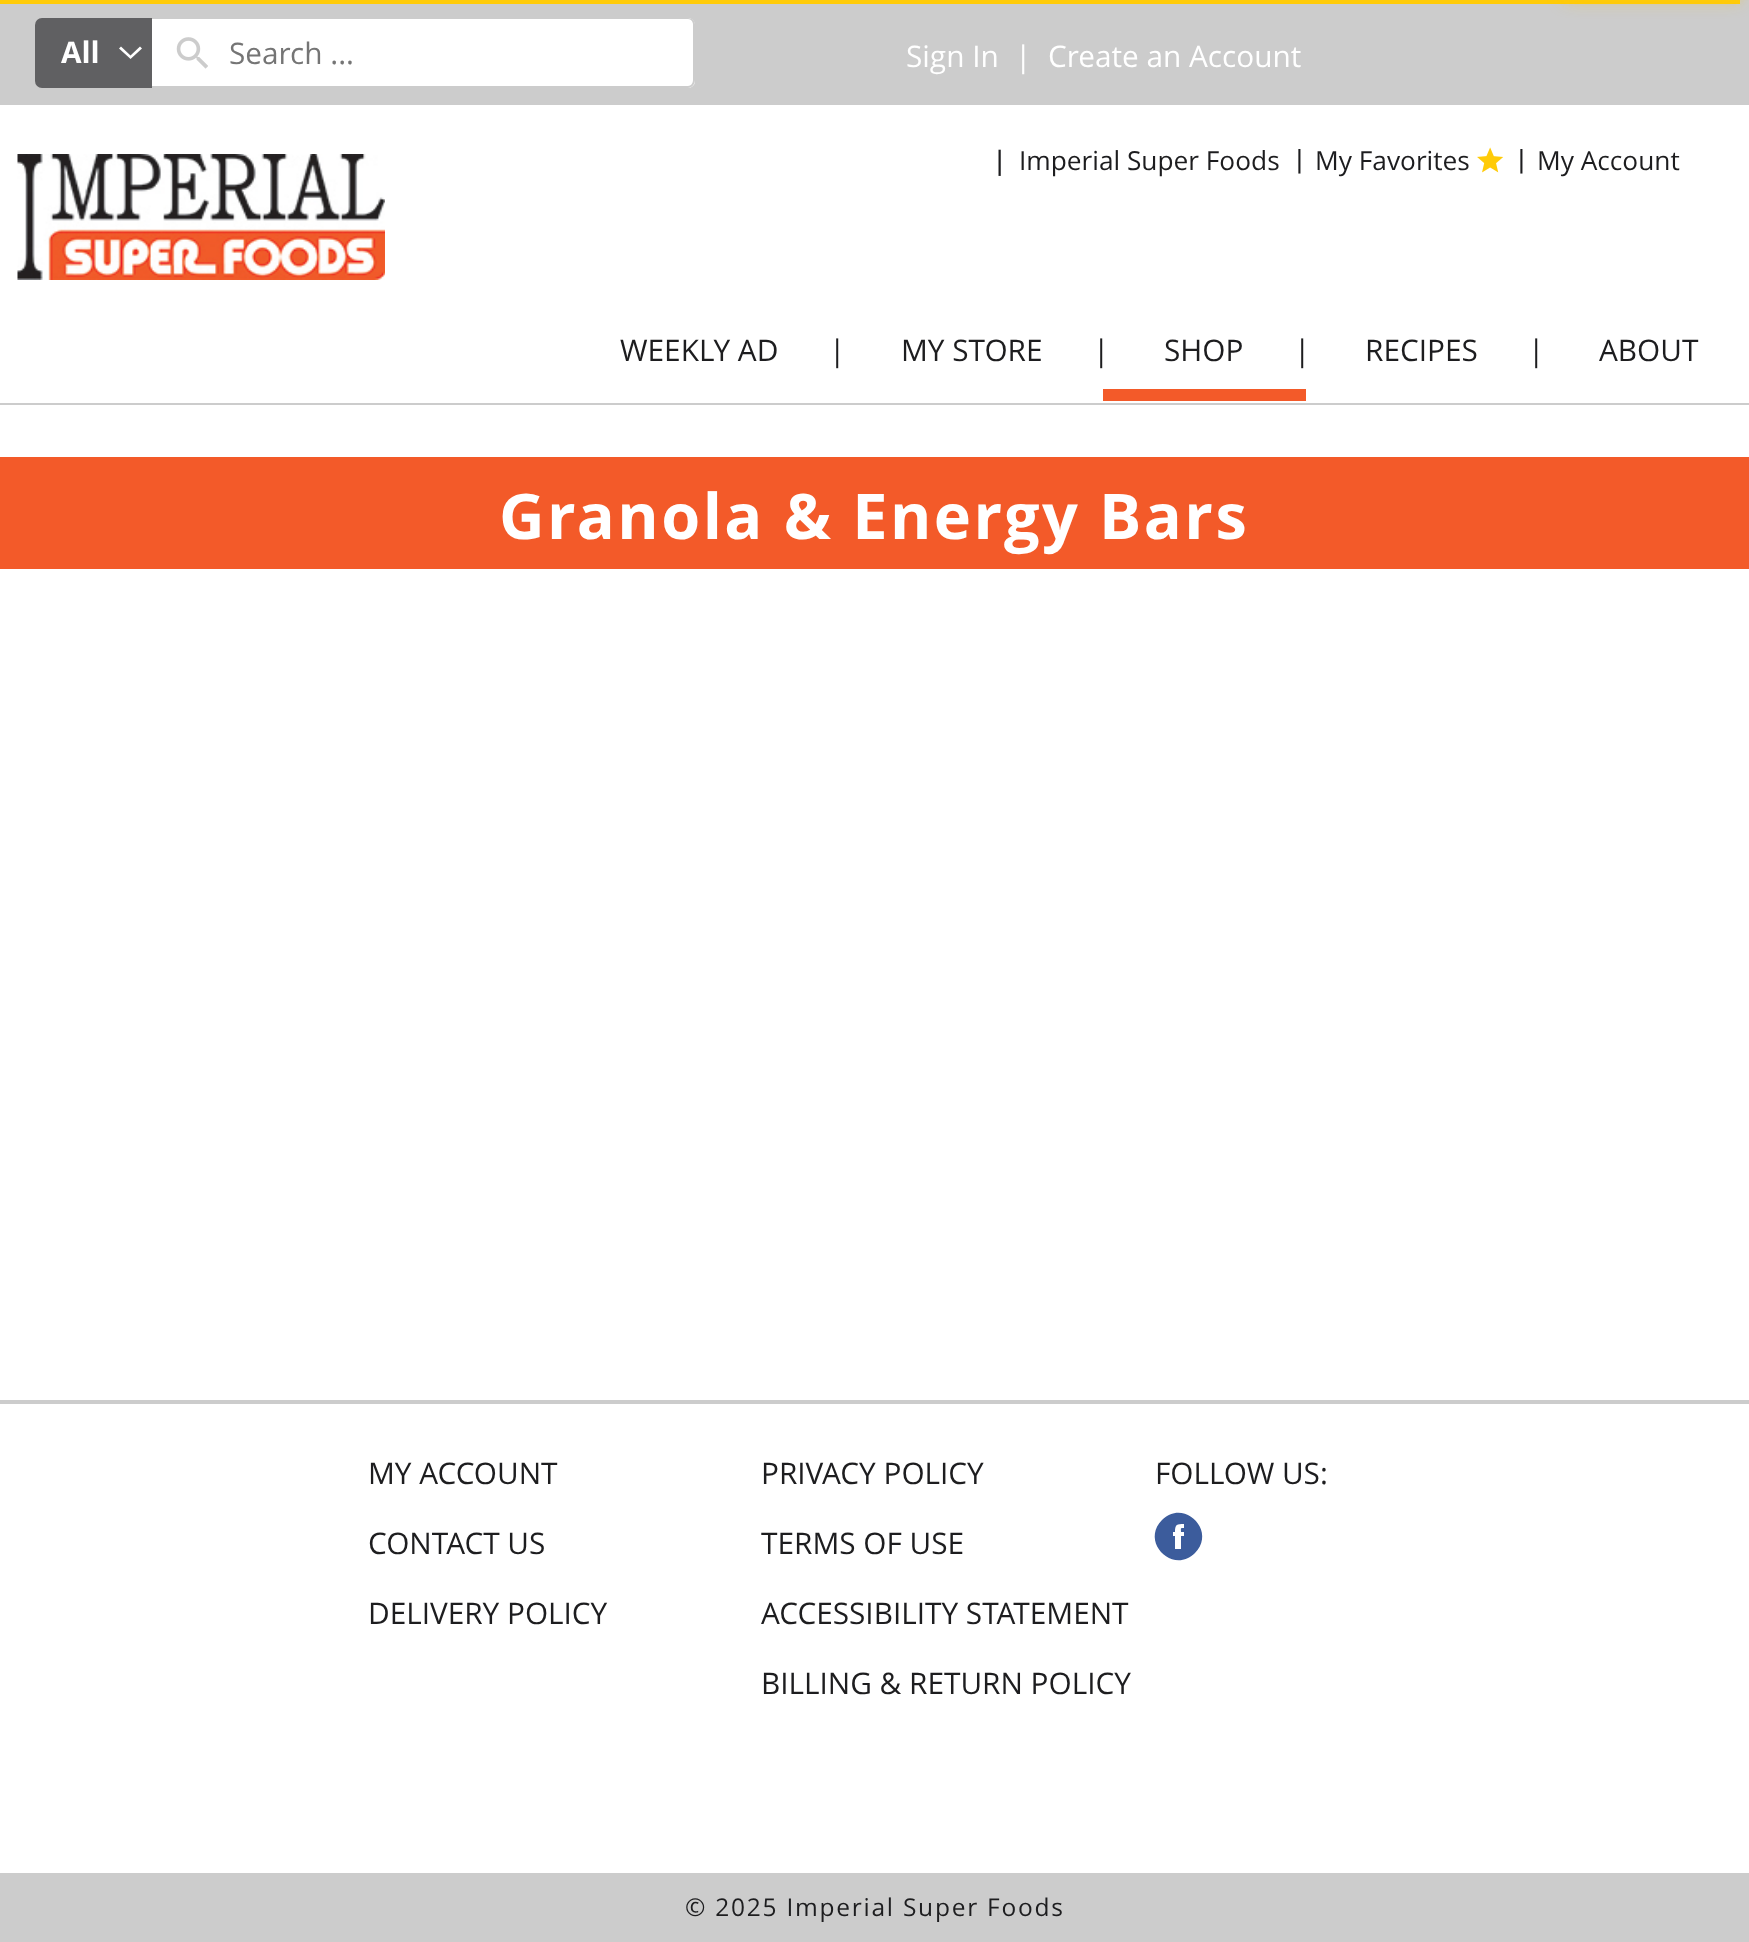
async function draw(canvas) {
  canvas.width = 1749
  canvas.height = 1942
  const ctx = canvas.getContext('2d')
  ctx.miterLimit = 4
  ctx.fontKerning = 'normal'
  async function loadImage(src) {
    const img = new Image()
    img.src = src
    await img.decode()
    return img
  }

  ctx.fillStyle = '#fff'
  ctx.fillRect(0, 0, 1749, 1942)
  ctx.fillStyle = '#ccc'
  ctx.fillRect(0, 0, 1749, 105)
  ctx.fillStyle = '#ffcb08'
  ctx.fillRect(0, 0, 1740, 4)
  ctx.filter = 'blur(4.5px)'
  ctx.beginPath()
  ctx.rect(1565, -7, 175, 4)
  ctx.fill()
  ctx.filter = 'none'
  ctx.filter = 'blur(9px)'
  ctx.beginPath()
  ctx.rect(1565, -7, 175, 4)
  ctx.fill()
  ctx.filter = 'none'
  ctx.fillStyle = '#606062'
  ctx.beginPath()
  ctx.roundRect(35, 18, 117, 70, [7, 0, 0, 7])
  ctx.fill()
  ctx.font = 'bold 29.75px Open Sans'
  ctx.fillStyle = '#fff'
  ctx.fillText('All', 61, 63)
  ctx.beginPath()
  ctx.moveTo(129.5, 58)
  ctx.lineTo(119, 48.5)
  ctx.lineTo(121, 46.5)
  ctx.lineTo(130.5, 55.5)
  ctx.lineTo(140, 46.5)
  ctx.lineTo(142, 48.5)
  ctx.lineTo(130.5, 59)
  ctx.closePath()
  ctx.fill()
  ctx.beginPath()
  ctx.roundRect(152, 18, 543, 70, [0, 7, 7, 0])
  ctx.fill()
  ctx.fillStyle = '#ccc'
  ctx.beginPath()
  ctx.moveTo(152, 18)
  ctx.lineTo(688, 18)
  ctx.bezierCurveTo(692, 18, 695, 21, 695, 24)
  ctx.lineTo(695, 80)
  ctx.bezierCurveTo(695, 84, 692, 88, 688, 88)
  ctx.lineTo(152, 88)
  ctx.closePath()
  ctx.moveTo(152, 19)
  ctx.lineTo(688, 19)
  ctx.bezierCurveTo(691, 19, 693, 22, 693, 24)
  ctx.lineTo(693, 80)
  ctx.bezierCurveTo(693, 83, 691, 86, 688, 86)
  ctx.lineTo(152, 86)
  ctx.closePath()
  ctx.fill('evenodd')
  ctx.drawImage(await loadImage('image0.png'), 176, 37, 32, 32)
  ctx.font = '29.75px Open Sans'
  ctx.fillStyle = '#757575'
  ctx.fillText('Search ...', 229, 64)
  ctx.fillStyle = '#fff'
  ctx.fillText('Sign In', 906, 67)
  ctx.fillText('|', 1015, 67)
  ctx.fillText('Create an Account', 1048, 67)
  ctx.font = '28px Liberation Sans'
  ctx.fillStyle = '#1d1d1f'
  ctx.fillText('|', 996, 170)
  ctx.font = '26.25px Open Sans'
  ctx.fillText('Imperial Super Foods', 1019, 170)
  ctx.font = '26.25px Liberation Sans'
  ctx.fillText('|', 1296, 168)
  ctx.font = '26.25px Open Sans'
  ctx.fillText('My Favorites', 1315, 170)
  ctx.drawImage(await loadImage('image1.png'), 1477, 147, 27, 26)
  ctx.font = '26.25px Liberation Sans'
  ctx.fillText('|', 1518, 168)
  ctx.font = '26.25px Open Sans'
  ctx.fillText('My Account', 1537, 170)
  ctx.drawImage(await loadImage('image2.png'), 17, 154, 368, 126)
  ctx.fillStyle = '#ccc'
  ctx.fillRect(0, 403, 1749, 2)
  ctx.font = '29.75px Open Sans'
  ctx.fillStyle = '#1d1d1f'
  ctx.fillText('WEEKLY AD', 620, 361)
  ctx.fillText('|', 829, 361)
  ctx.fillText('MY STORE', 901, 361)
  ctx.fillText('|', 1093, 361)
  ctx.fillText('SHOP', 1164, 361)
  ctx.fillText('|', 1294, 361)
  ctx.fillStyle = '#f35a29'
  ctx.fillRect(1103, 389, 203, 12)
  ctx.fillStyle = '#1d1d1f'
  ctx.fillText('RECIPES', 1365, 361)
  ctx.fillText('|', 1528, 361)
  ctx.fillText('ABOUT', 1599, 361)
  ctx.fillStyle = '#f35a29'
  ctx.fillRect(0, 457, 1749, 112)
  ctx.letterSpacing = '2.45px'
  ctx.font = 'bold 63px Open Sans'
  ctx.fillStyle = '#fff'
  ctx.fillText('Granola & Energy Bars', 499, 539)
  ctx.fillStyle = '#ccc'
  ctx.fillRect(0, 1400, 1749, 4)
  ctx.letterSpacing = '0px'
  ctx.font = '29.75px Open Sans'
  ctx.fillStyle = '#1d1d1f'
  ctx.fillText('MY ACCOUNT', 368, 1484)
  ctx.fillText('CONTACT US', 368, 1554)
  ctx.fillText('DELIVERY POLICY', 368, 1624)
  ctx.fillText('PRIVACY POLICY', 761, 1484)
  ctx.fillText('TERMS OF USE', 761, 1554)
  ctx.fillText('ACCESSIBILITY STATEMENT', 761, 1624)
  ctx.fillText('BILLING & RETURN POLICY', 761, 1694)
  ctx.fillText('FOLLOW US:', 1155, 1484)
  ctx.fillStyle = '#3c5c9c'
  ctx.beginPath()
  ctx.moveTo(1195, 1553)
  ctx.bezierCurveTo(1173, 1575, 1140, 1542, 1162, 1520)
  ctx.bezierCurveTo(1184, 1498, 1217, 1531, 1195, 1553)
  ctx.closePath()
  ctx.moveTo(1184, 1536)
  ctx.lineTo(1184, 1532)
  ctx.lineTo(1181, 1532)
  ctx.bezierCurveTo(1181, 1528, 1180, 1528, 1184, 1528)
  ctx.lineTo(1184, 1524)
  ctx.bezierCurveTo(1177, 1524, 1175, 1524, 1175, 1532)
  ctx.lineTo(1173, 1532)
  ctx.lineTo(1173, 1536)
  ctx.lineTo(1175, 1536)
  ctx.lineTo(1175, 1549)
  ctx.lineTo(1181, 1549)
  ctx.lineTo(1181, 1536)
  ctx.closePath()
  ctx.fill()
  ctx.fillStyle = '#ccc'
  ctx.fillRect(0, 1873, 1749, 69)
  ctx.letterSpacing = '1.75px'
  ctx.font = '24.5px Open Sans'
  ctx.fillStyle = '#1d1d1f'
  ctx.fillText('© 2025 Imperial Super Foods', 685, 1916)
}

draw(document.querySelector('canvas'))
